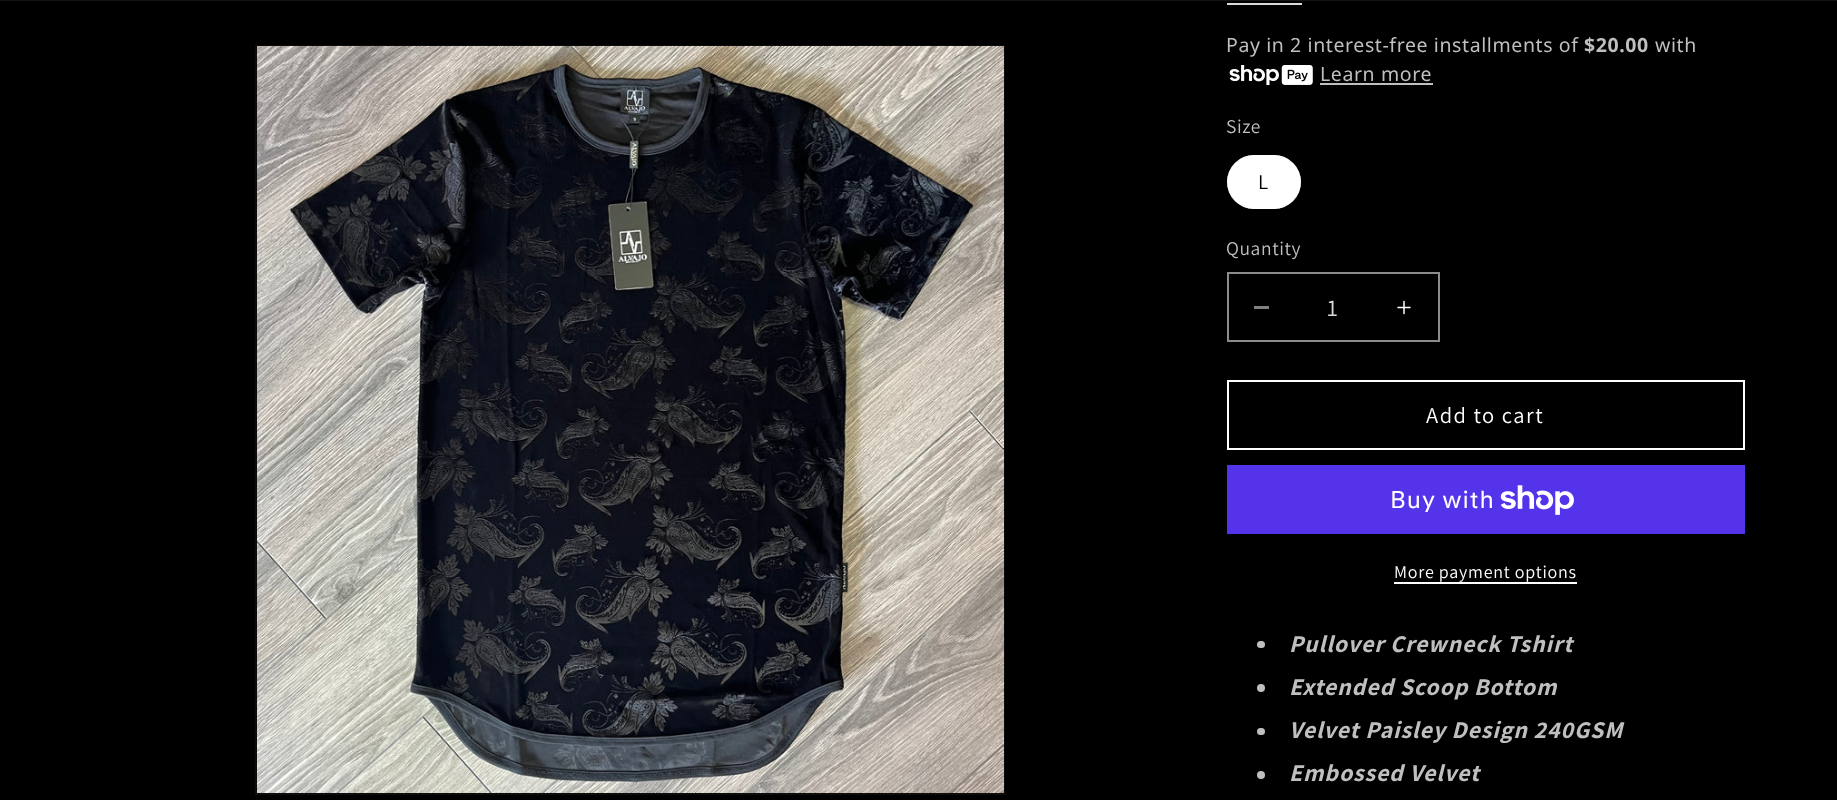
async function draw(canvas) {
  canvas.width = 1837
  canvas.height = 800
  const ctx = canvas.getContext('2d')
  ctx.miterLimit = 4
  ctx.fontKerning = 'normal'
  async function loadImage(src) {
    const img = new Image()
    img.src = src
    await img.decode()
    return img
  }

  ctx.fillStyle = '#000'
  ctx.fillRect(0, 0, 1837, 800)
  ctx.fillStyle = '#ffffff14'
  ctx.fillRect(0, 0, 1837, 1)
  ctx.strokeStyle = '#0d0d0d'
  ctx.lineWidth = 2
  ctx.strokeRect(256, 46, 748, 748)
  ctx.drawImage(await loadImage('image0.png'), 257, 46, 747, 747)
  ctx.fillStyle = '#d9d9d9'
  ctx.fillRect(1227, 3, 75, 2)
  ctx.letterSpacing = '0.6px'
  ctx.font = '19.5px Noto Sans'
  ctx.fillStyle = '#bfbfbf'
  ctx.fillText('Pay in 2 interest-free installments of', 1226, 52)
  ctx.font = 'bold 19.5px Noto Sans'
  ctx.fillText('$20.00', 1584, 52)
  ctx.font = '19.5px Noto Sans'
  ctx.fillText('with', 1655, 52)
  ctx.drawImage(await loadImage('image1.png'), 1229, 65, 84, 21)
  ctx.fillText('Learn more', 1320, 81)
  ctx.fillRect(1320, 83, 113, 2)
  ctx.font = '19.5px Assistant'
  ctx.fillText('Size', 1226, 133)
  ctx.fillStyle = '#fff'
  ctx.beginPath()
  ctx.roundRect(1227, 155, 74, 54, 27)
  ctx.fill()
  ctx.beginPath()
  ctx.roundRect(1228, 156, 72, 52, 26)
  ctx.strokeStyle = '#ffffff8c'
  ctx.stroke()
  ctx.letterSpacing = '1.5px'
  ctx.font = '21px Assistant'
  ctx.fillStyle = '#000'
  ctx.fillText('L', 1258, 189)
  ctx.letterSpacing = '0.6px'
  ctx.font = '19.5px Assistant'
  ctx.fillStyle = '#bfbfbf'
  ctx.fillText('Quantity', 1226, 255)
  ctx.fillStyle = '#808080'
  ctx.fillRect(1254, 306, 15, 3)
  ctx.drawImage(await loadImage('image2.png'), 1397, 300, 14, 15)
  ctx.strokeStyle = '#8c8c8c'
  ctx.strokeRect(1228, 273, 211, 68)
  ctx.letterSpacing = '0px'
  ctx.font = '24px Assistant'
  ctx.fillStyle = '#d9d9d9'
  ctx.fillText('1', 1327, 316)
  ctx.strokeStyle = '#fff'
  ctx.strokeRect(1228, 381, 516, 68)
  ctx.letterSpacing = '1.5px'
  ctx.font = '22.5px Assistant'
  ctx.fillStyle = '#fff'
  ctx.fillText('Add to cart', 1426, 423)
  ctx.fillStyle = '#5433eb'
  ctx.fillRect(1227, 465, 518, 69)
  ctx.letterSpacing = '0.9px'
  ctx.font = '24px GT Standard'
  ctx.fillStyle = '#fff'
  ctx.fillText('Buy with', 1390, 508)
  ctx.drawImage(await loadImage('image3.png'), 1500, 485, 74, 30)
  ctx.letterSpacing = '0.75px'
  ctx.font = '18px Assistant'
  ctx.fillText('More payment options', 1394, 578)
  ctx.fillRect(1394, 582, 183, 2)
  ctx.fillStyle = '#bfbfbf'
  ctx.beginPath()
  ctx.roundRect(1257, 641, 8, 7, 3.5)
  ctx.fill()
  ctx.letterSpacing = '0.9px'
  ctx.font = 'italic bold 24px Assistant'
  ctx.fillText('Pullover Crewneck Tshirt', 1289, 652)
  ctx.beginPath()
  ctx.arc(1261, 688, 4, 0, 2 * Math.PI)
  ctx.fill()
  ctx.fillText('Extended Scoop Bottom', 1289, 695)
  ctx.beginPath()
  ctx.roundRect(1257, 728, 8, 7, 3.5)
  ctx.fill()
  ctx.fillText('Velvet Paisley Design 240GSM', 1289, 738)
  ctx.beginPath()
  ctx.arc(1261, 775, 4, 0, 2 * Math.PI)
  ctx.fill()
  ctx.fillText('Embossed Velvet', 1289, 781)
}

draw(document.querySelector('canvas'))
